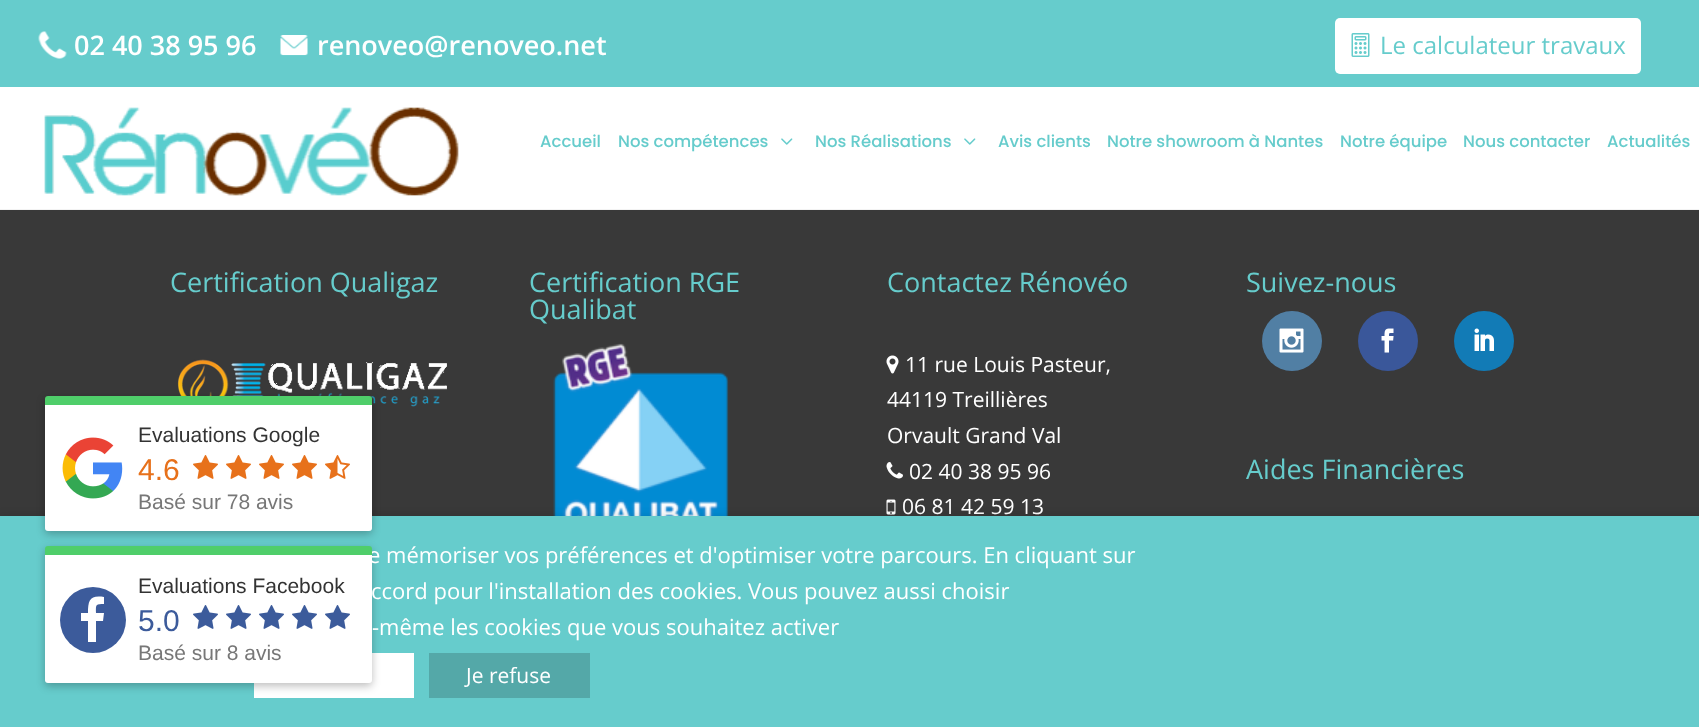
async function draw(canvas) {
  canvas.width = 1699
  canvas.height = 727
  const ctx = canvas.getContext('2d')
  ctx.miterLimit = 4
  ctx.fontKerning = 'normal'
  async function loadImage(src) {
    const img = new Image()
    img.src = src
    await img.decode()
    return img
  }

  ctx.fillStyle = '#393939'
  ctx.fillRect(0, 0, 1699, 727)
  ctx.fillStyle = '#6cc'
  ctx.fillRect(0, 0, 1699, 87)
  ctx.drawImage(await loadImage('image0.png'), 38, 31, 29, 28)
  ctx.font = '600 27px Open Sans'
  ctx.fillStyle = '#fff'
  ctx.fillText('02 40 38 95 96', 74, 55)
  ctx.drawImage(await loadImage('image1.png'), 280, 35, 28, 21)
  ctx.fillText('renoveo@renoveo.net', 317, 55)
  ctx.beginPath()
  ctx.roundRect(1335, 18, 306, 56, 5)
  ctx.fill()
  ctx.drawImage(await loadImage('image2.png'), 1351, 33, 19, 24)
  ctx.font = '24px Open Sans'
  ctx.fillStyle = '#6cc'
  ctx.fillText('Le calculateur travaux', 1380, 54)
  ctx.fillStyle = '#fff'
  ctx.fillRect(0, 87, 1699, 122)
  ctx.fillStyle = '#f3f3f3'
  ctx.fillRect(0, 209, 1699, 1)
  ctx.drawImage(await loadImage('image3.png'), 44, 107, 415, 89)
  ctx.font = '500 16.5px Poppins'
  ctx.fillStyle = '#6cc'
  ctx.fillText('Accueil', 540, 147)
  ctx.fillText('Nos compétences', 618, 147)
  ctx.drawImage(await loadImage('image4.png'), 781, 138, 12, 7)
  ctx.fillText('Nos Réalisations', 815, 147)
  ctx.drawImage(await loadImage('image4.png'), 964, 138, 12, 7)
  ctx.fillText('Avis clients', 998, 147)
  ctx.fillText('Notre showroom à Nantes', 1107, 147)
  ctx.fillText('Notre équipe', 1340, 147)
  ctx.fillText('Nous contacter', 1463, 147)
  ctx.fillText('Actualités', 1607, 147)
  ctx.font = '27px Open Sans'
  ctx.fillText('Certification Qualigaz', 170, 292)
  ctx.drawImage(await loadImage('image5.png'), 177, 359, 270, 48)
  ctx.fillText('Certification RGE', 529, 292)
  ctx.fillText('Qualibat', 529, 319)
  ctx.drawImage(await loadImage('image6.png'), 553, 343, 176, 173)
  ctx.fillText('Contactez Rénovéo', 887, 292)
  ctx.drawImage(await loadImage('image7.png'), 886, 355, 13, 19)
  ctx.font = '21px Open Sans'
  ctx.fillStyle = '#fff'
  ctx.fillText('11 rue Louis Pasteur,', 905, 372)
  ctx.fillText('44119 Treillières', 887, 407)
  ctx.fillText('Orvault Grand Val', 887, 443)
  ctx.drawImage(await loadImage('image8.png'), 886, 462, 17, 17)
  ctx.fillText('02 40 38 95 96', 909, 479)
  ctx.drawImage(await loadImage('image9.png'), 886, 499, 10, 16)
  ctx.fillText('06 81 42 59 13', 902, 514)
  ctx.font = '27px Open Sans'
  ctx.fillStyle = '#6cc'
  ctx.fillText('Suivez-nous', 1246, 292)
  ctx.fillStyle = '#517fa4'
  ctx.beginPath()
  ctx.arc(1292, 341, 30, 0, 2 * Math.PI)
  ctx.fill()
  ctx.drawImage(await loadImage('image10.png'), 1279, 328, 25, 25)
  ctx.fillStyle = '#3a579a'
  ctx.beginPath()
  ctx.arc(1388, 341, 30, 0, 2 * Math.PI)
  ctx.fill()
  ctx.drawImage(await loadImage('image11.png'), 1381, 328, 13, 25)
  ctx.fillStyle = '#127bb6'
  ctx.beginPath()
  ctx.arc(1484, 341, 30, 0, 2 * Math.PI)
  ctx.fill()
  ctx.drawImage(await loadImage('image12.png'), 1474, 328, 20, 23)
  ctx.fillStyle = '#6cc'
  ctx.fillText('Aides Financières', 1246, 479)
  ctx.fillStyle = '#00000080'
  ctx.filter = 'blur(7.5px)'
  ctx.beginPath()
  ctx.rect(0, 524, 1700, 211)
  ctx.fill()
  ctx.filter = 'none'
  ctx.fillStyle = '#6cc'
  ctx.fillRect(0, 516, 1699, 211)
  ctx.fillStyle = '#00000042'
  ctx.filter = 'blur(4px)'
  ctx.beginPath()
  ctx.roundRect(45, 399, 327, 135, 3)
  ctx.fill()
  ctx.filter = 'none'
  ctx.fillStyle = '#4fce6a'
  ctx.beginPath()
  ctx.roundRect(45, 396, 327, 9, [3, 3, 0, 0])
  ctx.fill()
  ctx.fillStyle = '#fff'
  ctx.beginPath()
  ctx.roundRect(45, 405, 327, 126, [0, 0, 3, 3])
  ctx.fill()
  ctx.drawImage(await loadImage('image13.png'), 62, 437, 61, 62)
  ctx.font = '21px Liberation Sans'
  ctx.fillStyle = '#333'
  ctx.fillText('Evaluations Google', 138, 442)
  ctx.font = '30px Liberation Sans'
  ctx.fillStyle = '#e7711b'
  ctx.fillText('4.6', 138, 480)
  ctx.drawImage(await loadImage('image14.png'), 193, 455, 25, 24)
  ctx.drawImage(await loadImage('image14.png'), 226, 455, 25, 24)
  ctx.drawImage(await loadImage('image14.png'), 259, 455, 25, 24)
  ctx.drawImage(await loadImage('image14.png'), 292, 455, 25, 24)
  ctx.drawImage(await loadImage('image15.png'), 325, 455, 25, 24)
  ctx.font = '21px Liberation Sans'
  ctx.fillStyle = '#777'
  ctx.fillText('Basé sur 78 avis', 138, 509)
  ctx.fillStyle = '#fff'
  ctx.fillRect(254, 653, 160, 45)
  ctx.fillStyle = '#00000042'
  ctx.filter = 'blur(4px)'
  ctx.beginPath()
  ctx.roundRect(45, 549, 327, 137, 3)
  ctx.fill()
  ctx.filter = 'none'
  ctx.font = '22px Open Sans'
  ctx.fillStyle = '#fff'
  ctx.fillText('e mémoriser vos préférences et d\'optimiser votre parcours. En cliquant sur', 368, 563)
  ctx.fillStyle = '#4fce6a'
  ctx.beginPath()
  ctx.roundRect(45, 546, 327, 9, [3, 3, 0, 0])
  ctx.fill()
  ctx.fillStyle = '#fff'
  ctx.beginPath()
  ctx.roundRect(45, 555, 327, 128, [0, 0, 3, 3])
  ctx.fill()
  ctx.fillStyle = '#3c5b9b'
  ctx.beginPath()
  ctx.arc(93, 620, 33, 0, 2 * Math.PI)
  ctx.fill()
  ctx.fillStyle = '#fff'
  ctx.beginPath()
  ctx.moveTo(104, 597)
  ctx.lineTo(104, 604)
  ctx.bezierCurveTo(95, 604, 96, 605, 96, 613)
  ctx.lineTo(104, 613)
  ctx.lineTo(103, 621)
  ctx.lineTo(96, 621)
  ctx.lineTo(96, 642)
  ctx.lineTo(88, 642)
  ctx.lineTo(88, 621)
  ctx.lineTo(81, 621)
  ctx.lineTo(81, 613)
  ctx.lineTo(88, 613)
  ctx.bezierCurveTo(88, 600, 90, 595, 104, 597)
  ctx.closePath()
  ctx.fill()
  ctx.font = '21px Liberation Sans'
  ctx.fillStyle = '#333'
  ctx.fillText('Evaluations Facebook', 138, 593)
  ctx.font = '30px Liberation Sans'
  ctx.fillStyle = '#3c5b9b'
  ctx.fillText('5.0', 138, 631)
  ctx.drawImage(await loadImage('image16.png'), 193, 605, 25, 24)
  ctx.drawImage(await loadImage('image16.png'), 226, 605, 25, 24)
  ctx.drawImage(await loadImage('image16.png'), 259, 605, 25, 24)
  ctx.drawImage(await loadImage('image16.png'), 292, 605, 25, 24)
  ctx.drawImage(await loadImage('image16.png'), 325, 605, 25, 24)
  ctx.font = '21px Liberation Sans'
  ctx.fillStyle = '#777'
  ctx.fillText('Basé sur 8 avis', 138, 660)
  ctx.font = '22px Open Sans'
  ctx.fillStyle = '#fff'
  ctx.fillText('ccord pour l\'installation des cookies. Vous pouvez aussi choisir', 371, 599)
  ctx.fillText('-même les cookies que vous souhaitez activer', 372, 635)
  ctx.fillStyle = '#54a8a8'
  ctx.fillRect(429, 653, 161, 45)
  ctx.font = '21px Open Sans'
  ctx.fillStyle = '#fff'
  ctx.fillText('Je refuse', 466, 683)
}

draw(document.querySelector('canvas'))
